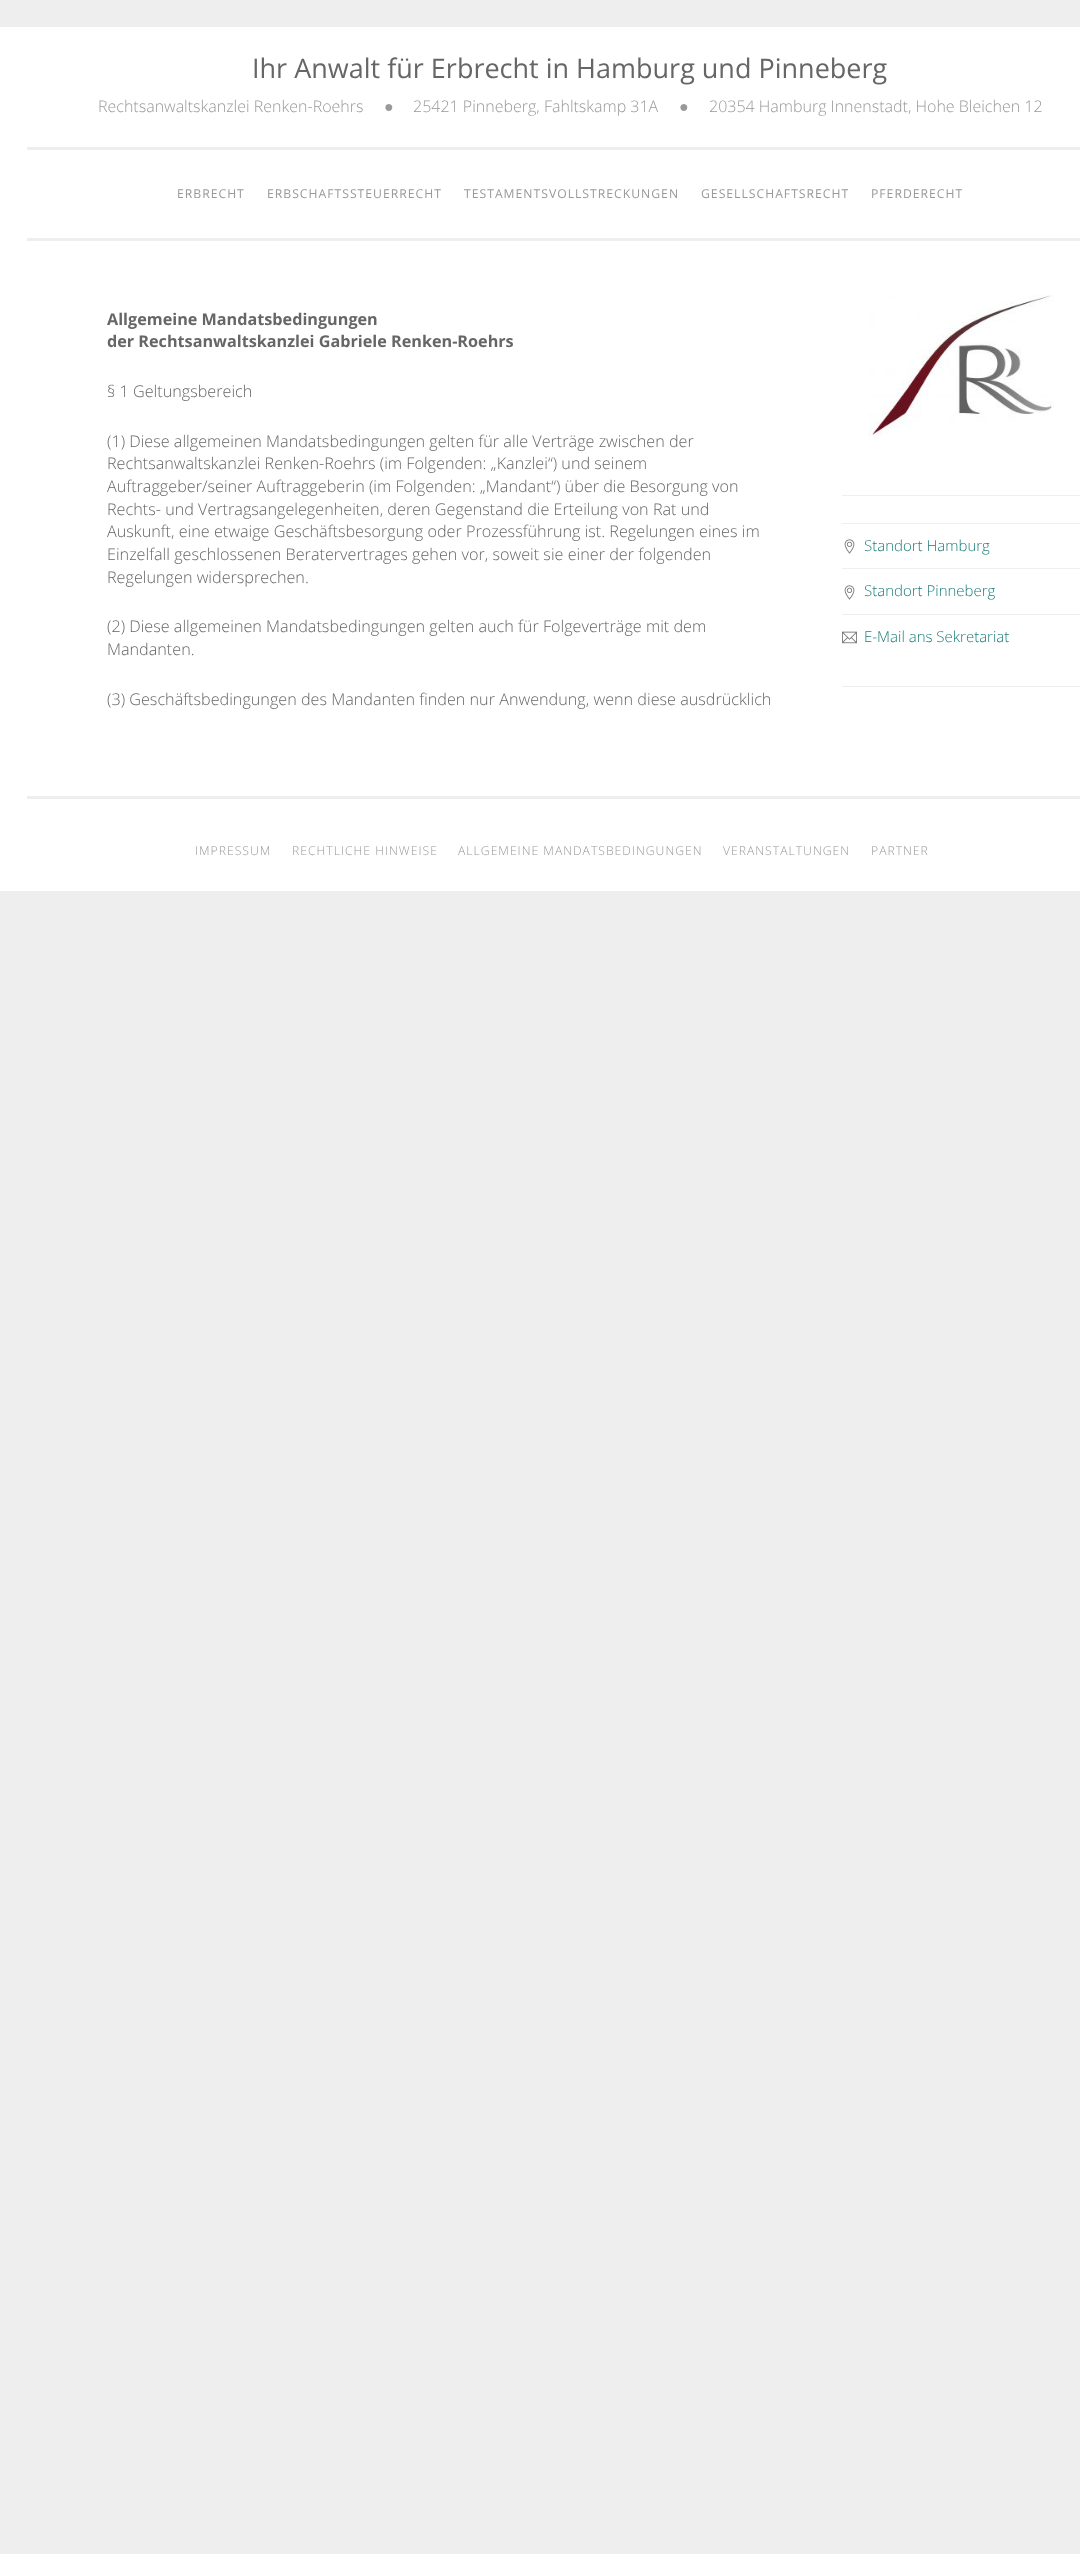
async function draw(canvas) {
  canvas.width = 1080
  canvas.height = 2554
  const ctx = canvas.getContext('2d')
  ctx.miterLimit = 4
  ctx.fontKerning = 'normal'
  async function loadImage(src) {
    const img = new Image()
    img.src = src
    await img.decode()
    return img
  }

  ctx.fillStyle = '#eee'
  ctx.fillRect(0, 0, 1080, 2554)
  ctx.fillStyle = '#fff'
  ctx.fillRect(0, 27, 1080, 864)
  ctx.fillStyle = '#eee'
  ctx.fillRect(27, 238, 1053, 3)
  ctx.font = '27px Open Sans'
  ctx.fillStyle = '#666'
  ctx.fillText('Ihr Anwalt für Erbrecht in Hamburg und Pinneberg', 252, 78)
  ctx.font = '300 16px Open Sans'
  ctx.fillStyle = '#999'
  ctx.fillText('Rechtsanwaltskanzlei Renken-Roehrs', 98, 112)
  ctx.font = '16px Liberation Serif'
  ctx.fillText('●', 384, 112)
  ctx.font = '300 16px Open Sans'
  ctx.fillText('25421 Pinneberg, Fahltskamp 31A', 413, 112)
  ctx.font = '16px Liberation Serif'
  ctx.fillText('●', 679, 112)
  ctx.font = '300 16px Open Sans'
  ctx.fillText('20354 Hamburg Innenstadt, Hohe Bleichen 12', 709, 112)
  ctx.fillStyle = '#eee'
  ctx.fillRect(27, 147, 1053, 3)
  ctx.letterSpacing = '1px'
  ctx.font = '12.2px Open Sans'
  ctx.fillStyle = '#999'
  ctx.fillText('ERBRECHT', 177, 198)
  ctx.fillText('ERBSCHAFTSSTEUERRECHT', 267, 198)
  ctx.fillText('TESTAMENTSVOLLSTRECKUNGEN', 464, 198)
  ctx.fillText('GESELLSCHAFTSRECHT', 701, 198)
  ctx.fillText('PFERDERECHT', 871, 198)
  ctx.letterSpacing = '0px'
  ctx.font = 'bold 16.2px Open Sans'
  ctx.fillStyle = '#666'
  ctx.fillText('Allgemeine Mandatsbedingungen', 107, 325)
  ctx.fillText('der Rechtsanwaltskanzlei Gabriele Renken-Roehrs', 107, 347)
  ctx.font = '300 16.2px Open Sans'
  ctx.fillText('§ 1 Geltungsbereich', 107, 397)
  ctx.fillText('(1) Diese allgemeinen Mandatsbedingungen gelten für alle Verträge zwischen der', 107, 447)
  ctx.fillText('Rechtsanwaltskanzlei Renken-Roehrs (im Folgenden: „Kanzlei“) und seinem', 107, 469)
  ctx.fillText('Auftraggeber/seiner Auftraggeberin (im Folgenden: „Mandant“) über die Besorgung von', 107, 492)
  ctx.fillText('Rechts- und Vertragsangelegenheiten, deren Gegenstand die Erteilung von Rat und', 107, 515)
  ctx.fillText('Auskunft, eine etwaige Geschäftsbesorgung oder Prozessführung ist. Regelungen eines im', 107, 537)
  ctx.fillText('Einzelfall geschlossenen Beratervertrages gehen vor, soweit sie einer der folgenden', 107, 560)
  ctx.fillText('Regelungen widersprechen.', 107, 583)
  ctx.fillText('(2) Diese allgemeinen Mandatsbedingungen gelten auch für Folgeverträge mit dem', 107, 632)
  ctx.fillText('Mandanten.', 107, 655)
  ctx.fillText('(3) Geschäftsbedingungen des Mandanten finden nur Anwendung, wenn diese ausdrücklich', 107, 705)
  ctx.fillStyle = '#eee'
  ctx.fillRect(842, 495, 238, 1)
  ctx.drawImage(await loadImage('image0.png'), 868, 295, 186, 145)
  ctx.fillRect(842, 686, 238, 1)
  ctx.fillRect(842, 523, 238, 1)
  ctx.drawImage(await loadImage('image1.png'), 844, 539, 11, 15)
  ctx.font = '300 15px Open Sans'
  ctx.fillStyle = '#1c7c7c'
  ctx.fillText('Standort Hamburg', 864, 551)
  ctx.fillStyle = '#eee'
  ctx.fillRect(842, 568, 238, 1)
  ctx.drawImage(await loadImage('image1.png'), 844, 585, 11, 15)
  ctx.fillStyle = '#1c7c7c'
  ctx.fillText('Standort Pinneberg', 864, 596)
  ctx.fillStyle = '#eee'
  ctx.fillRect(842, 614, 238, 1)
  ctx.drawImage(await loadImage('image2.png'), 842, 631, 15, 13)
  ctx.fillStyle = '#1c7c7c'
  ctx.fillText('E-Mail ans Sekretariat', 864, 642)
  ctx.fillStyle = '#eee'
  ctx.fillRect(27, 796, 1053, 3)
  ctx.letterSpacing = '1px'
  ctx.font = '300 12.2px Open Sans'
  ctx.fillStyle = '#999'
  ctx.fillText('IMPRESSUM', 195, 855)
  ctx.fillText('RECHTLICHE HINWEISE', 292, 855)
  ctx.fillText('ALLGEMEINE MANDATSBEDINGUNGEN', 458, 855)
  ctx.fillText('VERANSTALTUNGEN', 723, 855)
  ctx.fillText('PARTNER', 871, 855)
}

draw(document.querySelector('canvas'))
